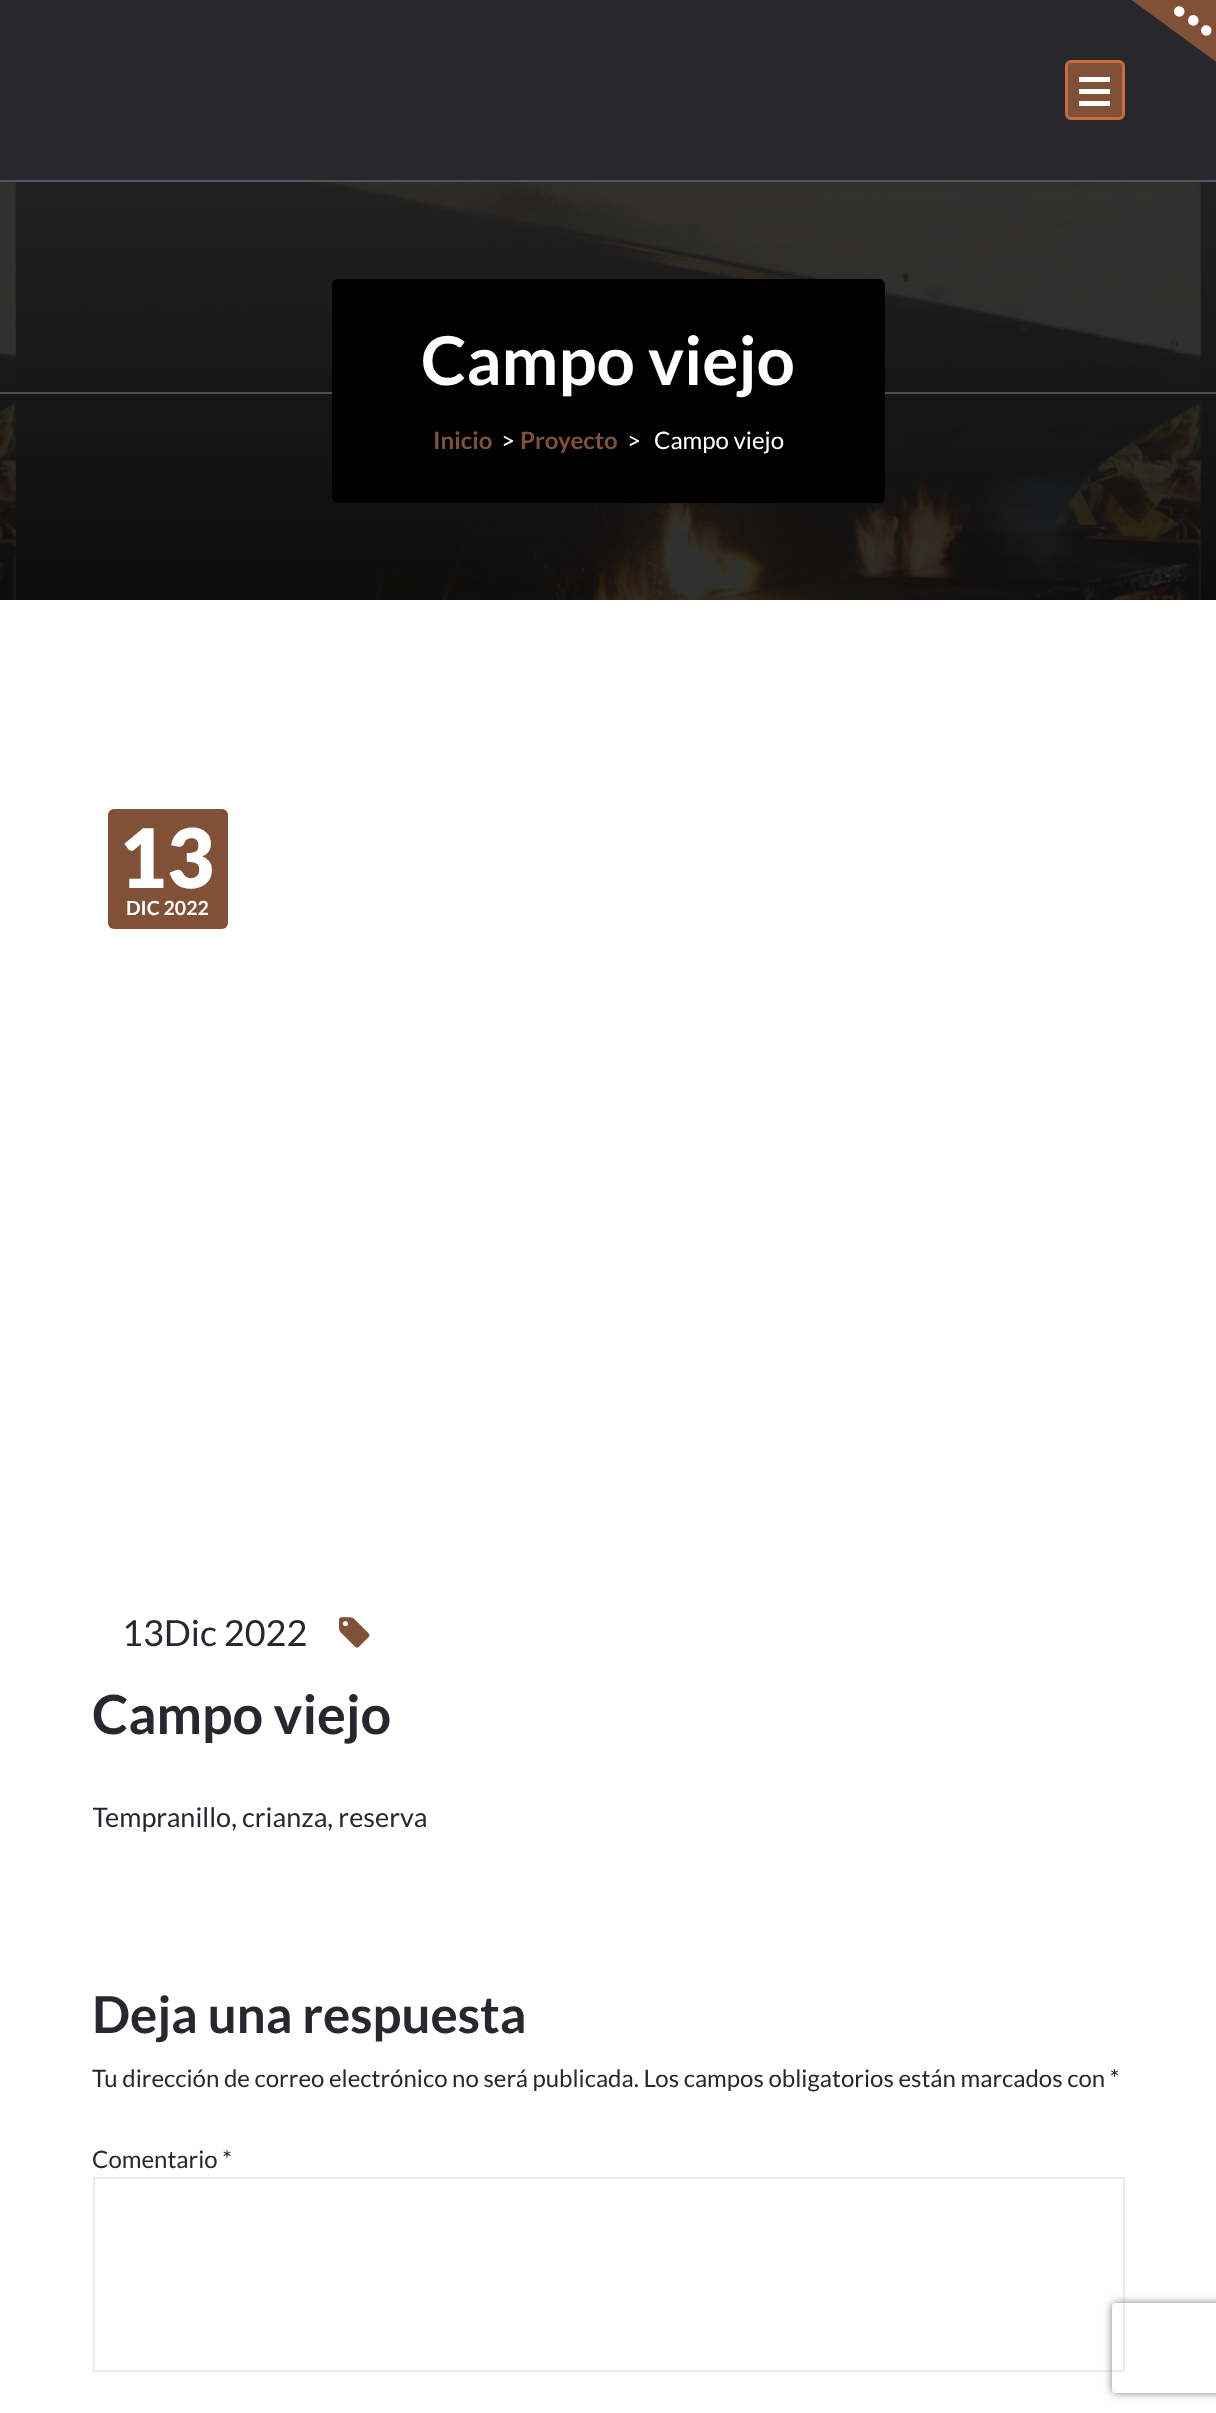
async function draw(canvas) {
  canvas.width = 1216
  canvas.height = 2413
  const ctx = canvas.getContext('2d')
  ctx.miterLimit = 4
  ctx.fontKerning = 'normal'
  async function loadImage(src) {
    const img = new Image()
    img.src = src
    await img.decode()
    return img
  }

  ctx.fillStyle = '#fff'
  ctx.fillRect(0, 0, 1216, 2413)
  ctx.fillStyle = '#333'
  ctx.fillRect(0, 182, 1216, 418)
  ctx.fillStyle = '#29272e'
  ctx.fillRect(0, 0, 1216, 180)
  ctx.fillStyle = '#51565d'
  ctx.fillRect(0, 180, 1216, 2)
  ctx.fillStyle = '#805137'
  ctx.beginPath()
  ctx.moveTo(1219, -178)
  ctx.lineTo(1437, -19)
  ctx.lineTo(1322, 139)
  ctx.lineTo(1104, -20)
  ctx.closePath()
  ctx.fill()
  ctx.fillStyle = '#fff'
  ctx.beginPath()
  ctx.moveTo(1189, 17.5)
  ctx.bezierCurveTo(1193, 11.5, 1201.5, 17.5, 1197.5, 23.5)
  ctx.bezierCurveTo(1193.5, 29, 1185, 23, 1189, 17.5)
  ctx.closePath()
  ctx.moveTo(1175, 8.5)
  ctx.bezierCurveTo(1179, 3, 1187.5, 9, 1183.5, 14.5)
  ctx.bezierCurveTo(1179.5, 20, 1171, 14, 1175, 8.5)
  ctx.closePath()
  ctx.moveTo(1202, 27.5)
  ctx.bezierCurveTo(1206, 22, 1214.5, 28, 1210.5, 33.5)
  ctx.bezierCurveTo(1206.5, 39, 1198, 33, 1202, 27.5)
  ctx.closePath()
  ctx.fill()
  ctx.fillStyle = '#805137'
  ctx.beginPath()
  ctx.roundRect(1066.5, 61.5, 57, 57, 4.5)
  ctx.fill()
  ctx.strokeStyle = '#c76c3a'
  ctx.lineWidth = 3
  ctx.stroke()
  ctx.fillStyle = '#fff'
  ctx.fillRect(1079, 77, 31, 5)
  ctx.fillRect(1079, 89, 31, 5)
  ctx.fillRect(1079, 101, 31, 5)
  ctx.drawImage(await loadImage('image0.png'), 0, 182, 1216, 418)
  ctx.fillStyle = '#4a4f54'
  ctx.fillRect(0, 392, 1216, 2)
  ctx.fillStyle = '#000'
  ctx.beginPath()
  ctx.roundRect(332, 279, 553, 224, 6)
  ctx.fill()
  ctx.font = 'bold 67.5px Lato'
  ctx.fillStyle = '#fff'
  ctx.fillText('Campo viejo', 421, 385)
  ctx.font = 'bold 24px Lato'
  ctx.fillStyle = '#805137'
  ctx.fillText('Inicio', 433, 449)
  ctx.font = '24px Lato'
  ctx.fillStyle = '#fff'
  ctx.fillText('>', 501, 449)
  ctx.font = 'bold 24px Lato'
  ctx.fillStyle = '#805137'
  ctx.fillText('Proyecto', 520, 449)
  ctx.font = '24px Lato'
  ctx.fillStyle = '#fff'
  ctx.fillText('>', 627, 449)
  ctx.fillText('Campo viejo', 654, 449)
  ctx.fillStyle = '#805137'
  ctx.beginPath()
  ctx.roundRect(108, 809, 120, 120, 6)
  ctx.fill()
  ctx.font = '900 82px Lato'
  ctx.fillStyle = '#fff'
  ctx.fillText('13', 119, 888)
  ctx.font = 'bold 19.5px Lato'
  ctx.fillText('DIC 2022', 126, 915)
  ctx.font = '36px Lato'
  ctx.fillStyle = '#29272e'
  ctx.fillText('13Dic 2022', 122, 1646)
  ctx.drawImage(await loadImage('image1.png'), 339, 1617, 31, 31)
  ctx.font = 'bold 54px Lato'
  ctx.fillText('Campo viejo', 92, 1734)
  ctx.save()
  ctx.beginPath()
  ctx.roundRect(93, 744, 1032, 1121, 6)
  ctx.clip()
  ctx.font = '27px Lato'
  ctx.fillText('Tempranillo, crianza, reserva', 92, 1827)
  ctx.restore()
  ctx.font = 'bold 51px Lato'
  ctx.fillText('Deja una respuesta', 92, 2033)
  ctx.font = '24px Lato'
  ctx.fillText('Tu dirección de correo electrónico no será publicada. Los campos obligatorios están marcados con *', 92, 2087)
  ctx.fillText('Comentario *', 92, 2168)
  ctx.strokeStyle = '#ebebeb'
  ctx.lineWidth = 2
  ctx.strokeRect(94, 2178, 1030, 193)
  ctx.save()
  ctx.beginPath()
  ctx.moveTo(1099, 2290)
  ctx.lineTo(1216, 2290)
  ctx.lineTo(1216, 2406)
  ctx.lineTo(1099, 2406)
  ctx.closePath()
  ctx.moveTo(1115, 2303)
  ctx.lineTo(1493, 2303)
  ctx.bezierCurveTo(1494.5, 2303, 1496, 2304.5, 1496, 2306)
  ctx.lineTo(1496, 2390)
  ctx.bezierCurveTo(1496, 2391.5, 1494.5, 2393, 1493, 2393)
  ctx.lineTo(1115, 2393)
  ctx.bezierCurveTo(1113.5, 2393, 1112, 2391.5, 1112, 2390)
  ctx.lineTo(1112, 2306)
  ctx.bezierCurveTo(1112, 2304.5, 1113.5, 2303, 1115, 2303)
  ctx.closePath()
  ctx.clip('evenodd')
  ctx.fillStyle = '#808080'
  ctx.filter = 'blur(4px)'
  ctx.beginPath()
  ctx.roundRect(1112, 2303, 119, 90, 3)
  ctx.fill()
  ctx.filter = 'none'
  ctx.restore()
}

draw(document.querySelector('canvas'))
